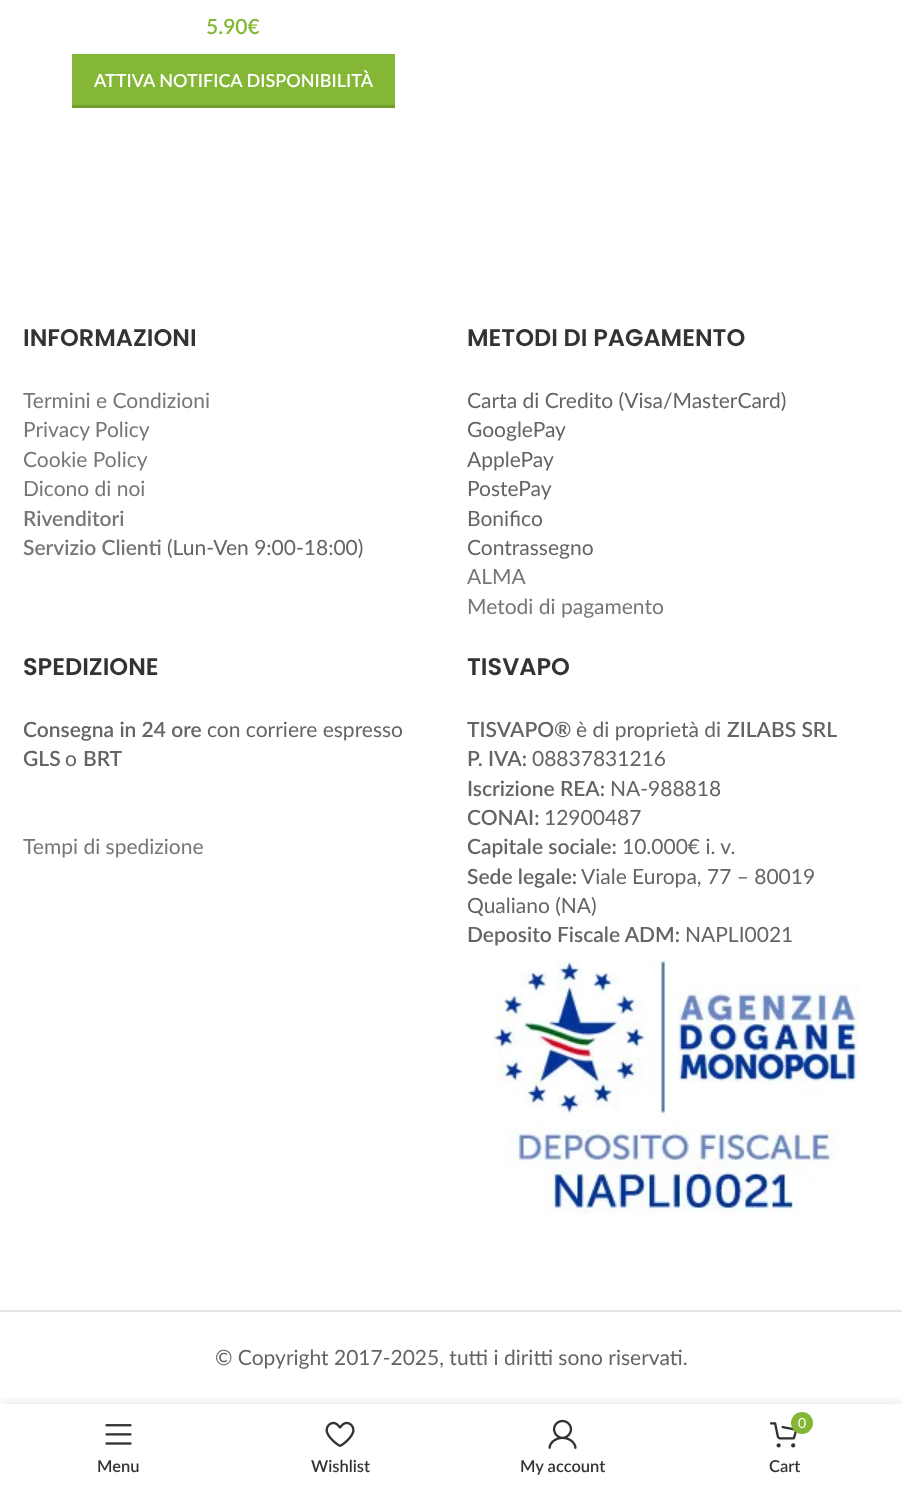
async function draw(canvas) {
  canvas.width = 902
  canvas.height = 1486
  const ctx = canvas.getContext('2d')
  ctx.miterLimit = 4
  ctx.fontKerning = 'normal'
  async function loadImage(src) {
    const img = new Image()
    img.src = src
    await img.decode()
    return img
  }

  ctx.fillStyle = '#fff'
  ctx.fillRect(0, 0, 902, 1486)
  ctx.font = '600 21px Lato'
  ctx.fillStyle = '#83b735'
  ctx.fillText('5.90€', 206, 34)
  ctx.fillRect(72, 54, 323, 51)
  ctx.fillStyle = '#6f9c2d'
  ctx.fillRect(72, 105, 323, 3)
  ctx.font = '600 18px Lato'
  ctx.fillStyle = '#fff'
  ctx.fillText('ATTIVA NOTIFICA DISPONIBILITÀ', 94, 87)
  ctx.font = '600 24px Poppins'
  ctx.fillStyle = '#333'
  ctx.fillText('INFORMAZIONI', 23, 346)
  ctx.font = '21px Lato'
  ctx.fillStyle = '#767676'
  ctx.fillText('Termini e Condizioni', 23, 408)
  ctx.fillText('Privacy Policy', 23, 437)
  ctx.fillText('Cookie Policy', 23, 467)
  ctx.fillText('Dicono di noi', 23, 496)
  ctx.font = '600 21px Lato'
  ctx.fillText('Rivenditori', 23, 526)
  ctx.fillText('Servizio Clienti', 23, 555)
  ctx.font = '21px Lato'
  ctx.fillStyle = '#646464'
  ctx.fillText('(Lun-Ven 9:00-18:00)', 167, 555)
  ctx.font = '600 24px Poppins'
  ctx.fillStyle = '#333'
  ctx.fillText('METODI DI PAGAMENTO', 467, 346)
  ctx.font = '21px Lato'
  ctx.fillStyle = '#646464'
  ctx.fillText('Carta di Credito (Visa/MasterCard)', 467, 408)
  ctx.fillText('GooglePay', 467, 437)
  ctx.fillText('ApplePay', 467, 467)
  ctx.fillText('PostePay', 467, 496)
  ctx.fillText('Bonifico', 467, 526)
  ctx.fillText('Contrassegno', 467, 555)
  ctx.fillStyle = '#767676'
  ctx.fillText('ALMA', 467, 584)
  ctx.fillText('Metodi di pagamento', 467, 614)
  ctx.font = '600 24px Poppins'
  ctx.fillStyle = '#333'
  ctx.fillText('SPEDIZIONE', 23, 675)
  ctx.font = '600 21px Lato'
  ctx.fillStyle = '#646464'
  ctx.fillText('Consegna in 24 ore', 23, 737)
  ctx.font = '21px Lato'
  ctx.fillText('con corriere espresso', 207, 737)
  ctx.font = '600 21px Lato'
  ctx.fillText('GLS', 23, 766)
  ctx.font = '21px Lato'
  ctx.fillText('o', 65, 766)
  ctx.font = '600 21px Lato'
  ctx.fillText('BRT', 83, 766)
  ctx.font = '21px Lato'
  ctx.fillStyle = '#767676'
  ctx.fillText('Tempi di spedizione', 23, 854)
  ctx.font = '600 24px Poppins'
  ctx.fillStyle = '#333'
  ctx.fillText('TISVAPO', 467, 675)
  ctx.font = '600 21px Lato'
  ctx.fillStyle = '#646464'
  ctx.fillText('TISVAPO®', 467, 737)
  ctx.font = '21px Lato'
  ctx.fillText('è di proprietà di', 576, 737)
  ctx.font = '600 21px Lato'
  ctx.fillText('ZILABS SRL', 727, 737)
  ctx.fillText('P. IVA:', 467, 766)
  ctx.font = '21px Lato'
  ctx.fillText('08837831216', 532, 766)
  ctx.font = '600 21px Lato'
  ctx.fillText('Iscrizione REA:', 467, 796)
  ctx.font = '21px Lato'
  ctx.fillText('NA-988818', 610, 796)
  ctx.font = '600 21px Lato'
  ctx.fillText('CONAI:', 467, 825)
  ctx.font = '21px Lato'
  ctx.fillText('12900487', 544, 825)
  ctx.font = '600 21px Lato'
  ctx.fillText('Capitale sociale:', 467, 854)
  ctx.font = '21px Lato'
  ctx.fillText('10.000€ i. v.', 622, 854)
  ctx.font = '600 21px Lato'
  ctx.fillText('Sede legale:', 467, 884)
  ctx.font = '21px Lato'
  ctx.fillText('Viale Europa, 77 – 80019', 581, 884)
  ctx.fillText('Qualiano (NA)', 467, 913)
  ctx.font = '600 21px Lato'
  ctx.fillText('Deposito Fiscale ADM:', 467, 942)
  ctx.font = '21px Lato'
  ctx.fillText('NAPLI0021', 685, 942)
  ctx.drawImage(await loadImage('image0.png'), 492, 960, 367, 254)
  ctx.fillStyle = '#e4e4e4'
  ctx.fillRect(0, 1310, 902, 2)
  ctx.fillStyle = '#646464'
  ctx.fillText('© Copyright 2017-2025, tutti i diritti sono riservati.', 215, 1365)
  ctx.save()
  ctx.beginPath()
  ctx.rect(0, 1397, 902, 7)
  ctx.clip()
  ctx.fillStyle = '#0000001f'
  ctx.filter = 'blur(7px)'
  ctx.beginPath()
  ctx.rect(0, 1404, 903, 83)
  ctx.fill()
  ctx.filter = 'none'
  ctx.restore()
  ctx.drawImage(await loadImage('image1.png'), 105, 1424, 27, 21)
  ctx.font = '600 16.5px Lato'
  ctx.fillStyle = '#333'
  ctx.fillText('Menu', 97, 1472)
  ctx.drawImage(await loadImage('image2.png'), 325, 1421, 30, 26)
  ctx.fillText('Wishlist', 311, 1472)
  ctx.drawImage(await loadImage('image3.png'), 548, 1419, 29, 30)
  ctx.fillText('My account', 520, 1472)
  ctx.drawImage(await loadImage('image4.png'), 770, 1422, 27, 26)
  ctx.fillStyle = '#83b735'
  ctx.beginPath()
  ctx.arc(802, 1423, 11, 0, 2 * Math.PI)
  ctx.fill()
  ctx.font = '14px Lato'
  ctx.fillStyle = '#fff'
  ctx.fillText('0', 798, 1428)
  ctx.font = '600 16.5px Lato'
  ctx.fillStyle = '#333'
  ctx.fillText('Cart', 769, 1472)
}

draw(document.querySelector('canvas'))
